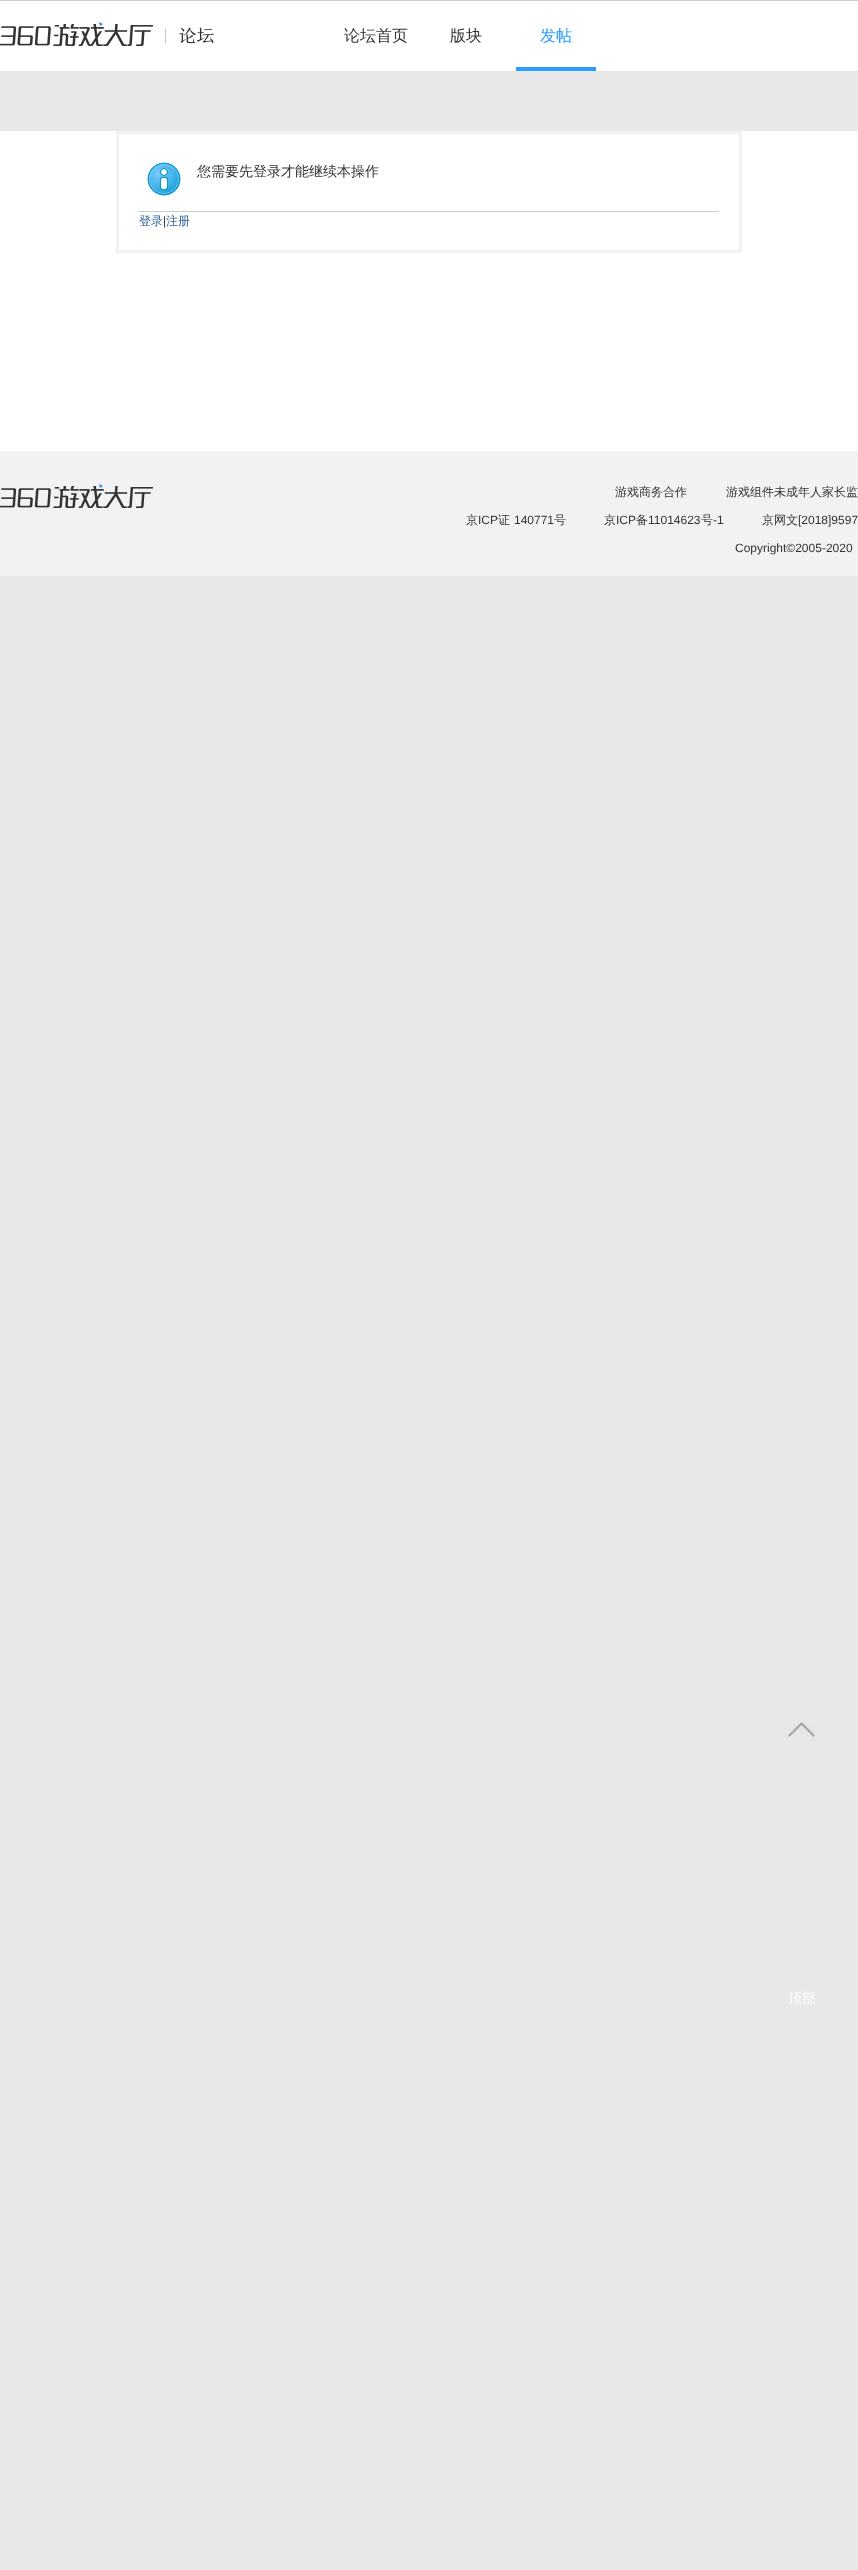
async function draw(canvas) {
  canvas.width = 858
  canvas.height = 2570
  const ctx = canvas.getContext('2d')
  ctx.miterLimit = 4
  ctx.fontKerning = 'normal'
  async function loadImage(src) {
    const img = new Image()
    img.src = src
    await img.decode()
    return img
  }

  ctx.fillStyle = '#e8e8e8'
  ctx.fillRect(0, 0, 858, 2570)
  ctx.fillStyle = '#cdcdcd'
  ctx.fillRect(0, 0, 858, 1)
  ctx.fillStyle = '#fff'
  ctx.fillRect(0, 1, 858, 70)
  ctx.drawImage(await loadImage('image0.png'), 0, 22, 214, 24)
  ctx.font = '500 16px WenQuanYi Zen Hei'
  ctx.fillStyle = '#333'
  ctx.fillText('论坛首页', 344, 41)
  ctx.fillText('版块', 450, 41)
  ctx.fillStyle = '#2d9dff'
  ctx.fillRect(516, 67, 80, 4)
  ctx.fillText('发帖', 540, 41)
  ctx.fillStyle = '#fff'
  ctx.fillRect(0, 131, 858, 320)
  ctx.strokeStyle = '#f2f2f2'
  ctx.lineWidth = 3
  ctx.strokeRect(117.5, 132.5, 623, 119)
  ctx.drawImage(await loadImage('image1.png'), 147, 162, 34, 34)
  ctx.font = '500 14px WenQuanYi Zen Hei'
  ctx.fillStyle = '#333'
  ctx.fillText('您需要先登录才能继续本操作', 197, 176)
  ctx.fillStyle = '#cdcdcd'
  ctx.fillRect(139, 211, 580, 1)
  ctx.font = '500 12px WenQuanYi Zen Hei'
  ctx.fillStyle = '#369'
  ctx.fillText('登录', 139, 225)
  ctx.font = '12px Liberation Sans'
  ctx.fillStyle = '#333'
  ctx.fillText('|', 163, 225)
  ctx.font = '500 12px WenQuanYi Zen Hei'
  ctx.fillStyle = '#369'
  ctx.fillText('注册', 166, 225)
  ctx.fillStyle = '#f2f2f2'
  ctx.fillRect(0, 451, 858, 125)
  ctx.drawImage(await loadImage('image2.png'), 0, 484, 153, 24)
  ctx.fillStyle = '#333'
  ctx.fillText('游戏商务合作', 615, 496)
  ctx.fillText('游戏组件未成年人家长监', 726, 496)
  ctx.fillText('京', 466, 524)
  ctx.font = '12px Liberation Sans'
  ctx.fillText('ICP', 478, 524)
  ctx.font = '500 12px WenQuanYi Zen Hei'
  ctx.fillText('证', 498, 524)
  ctx.font = '12px Liberation Sans'
  ctx.fillText('140771', 514, 524)
  ctx.font = '500 12px WenQuanYi Zen Hei'
  ctx.fillText('号', 554, 524)
  ctx.fillText('京', 604, 524)
  ctx.font = '12px Liberation Sans'
  ctx.fillText('ICP', 616, 524)
  ctx.font = '500 12px WenQuanYi Zen Hei'
  ctx.fillText('备', 636, 524)
  ctx.font = '12px Liberation Sans'
  ctx.fillText('11014623', 648, 524)
  ctx.font = '500 12px WenQuanYi Zen Hei'
  ctx.fillText('号', 701, 524)
  ctx.font = '12px Liberation Sans'
  ctx.fillText('-1', 713, 524)
  ctx.font = '500 12px WenQuanYi Zen Hei'
  ctx.fillText('京网文', 762, 524)
  ctx.font = '12px Liberation Sans'
  ctx.fillText('[2018]9597', 798, 524)
  ctx.fillText('Copyright©2005-2020', 735, 552)
  ctx.drawImage(await loadImage('image3.png'), 788, 1722, 27, 15)
  ctx.font = '500 14px WenQuanYi Zen Hei'
  ctx.fillStyle = '#fff'
  ctx.fillText('顶部', 788, 2003)
}

draw(document.querySelector('canvas'))
